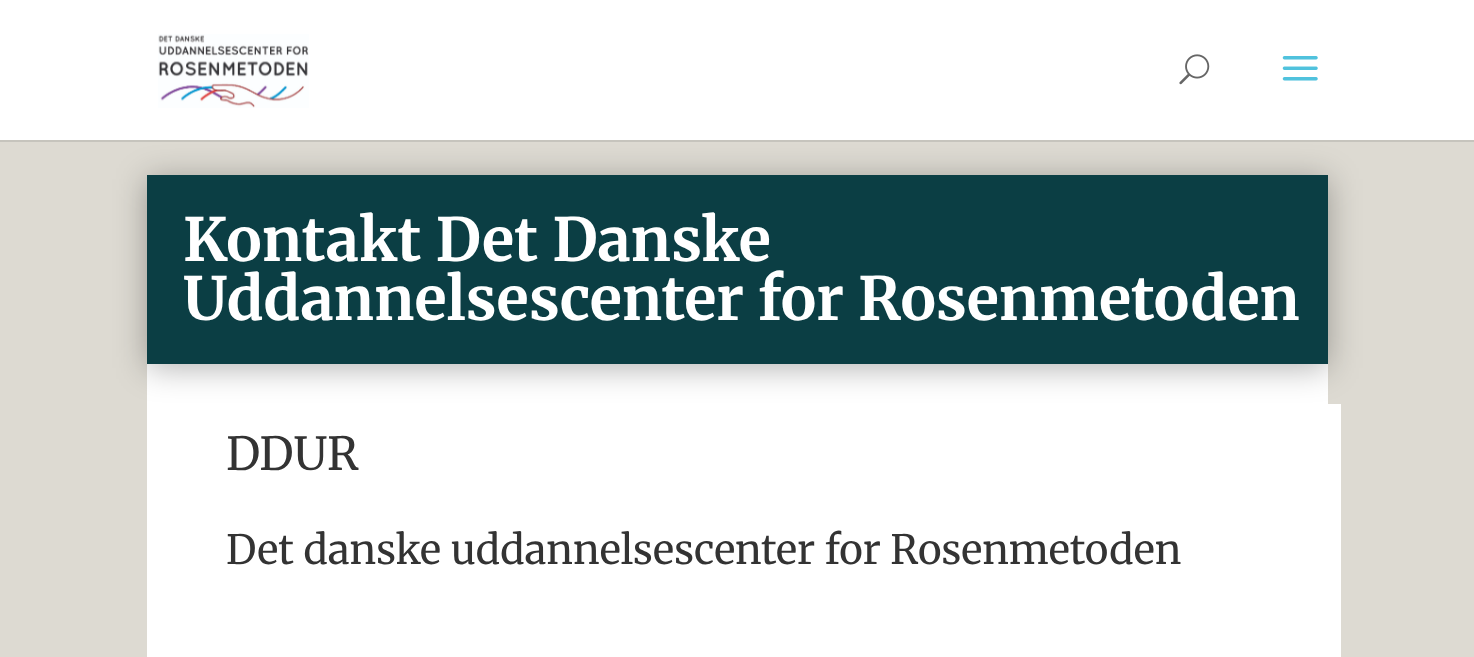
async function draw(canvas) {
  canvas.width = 1474
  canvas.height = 657
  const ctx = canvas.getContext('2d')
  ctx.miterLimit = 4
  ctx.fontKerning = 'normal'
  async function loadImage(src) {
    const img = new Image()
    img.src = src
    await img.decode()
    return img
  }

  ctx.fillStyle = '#fff'
  ctx.fillRect(0, 0, 1474, 657)
  ctx.fillStyle = '#dddad2'
  ctx.fillRect(0, 142, 1474, 515)
  ctx.fillStyle = '#fff'
  ctx.fillRect(147, 364, 1181, 293)
  ctx.fillStyle = '#0000004d'
  ctx.filter = 'blur(16px)'
  ctx.beginPath()
  ctx.rect(147, 179, 1181, 189)
  ctx.fill()
  ctx.filter = 'none'
  ctx.fillStyle = '#c6c4bd'
  ctx.fillRect(0, 140, 1474, 2)
  ctx.drawImage(await loadImage('image0.png'), 158, 34, 151, 74)
  ctx.drawImage(await loadImage('image1.png'), 1179, 54, 31, 31)
  ctx.drawImage(await loadImage('image2.png'), 1282, 56, 36, 25)
  ctx.fillStyle = '#0b3e44'
  ctx.fillRect(147, 175, 1181, 189)
  ctx.font = '300 59.5px Merriweather'
  ctx.fillStyle = '#fff'
  ctx.fillText('Kontakt Det Danske', 183, 261)
  ctx.fillText('Uddannelsescenter for Rosenmetoden', 183, 320)
  ctx.fillRect(1328, 404, 13, 253)
  ctx.font = '300 45.5px "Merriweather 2"'
  ctx.fillStyle = '#333'
  ctx.fillText('DDUR', 226, 470)
  ctx.font = '300 40.25px "Merriweather 2"'
  ctx.fillText('Det danske uddannelsescenter for Rosenmetoden', 226, 564)
}

draw(document.querySelector('canvas'))
